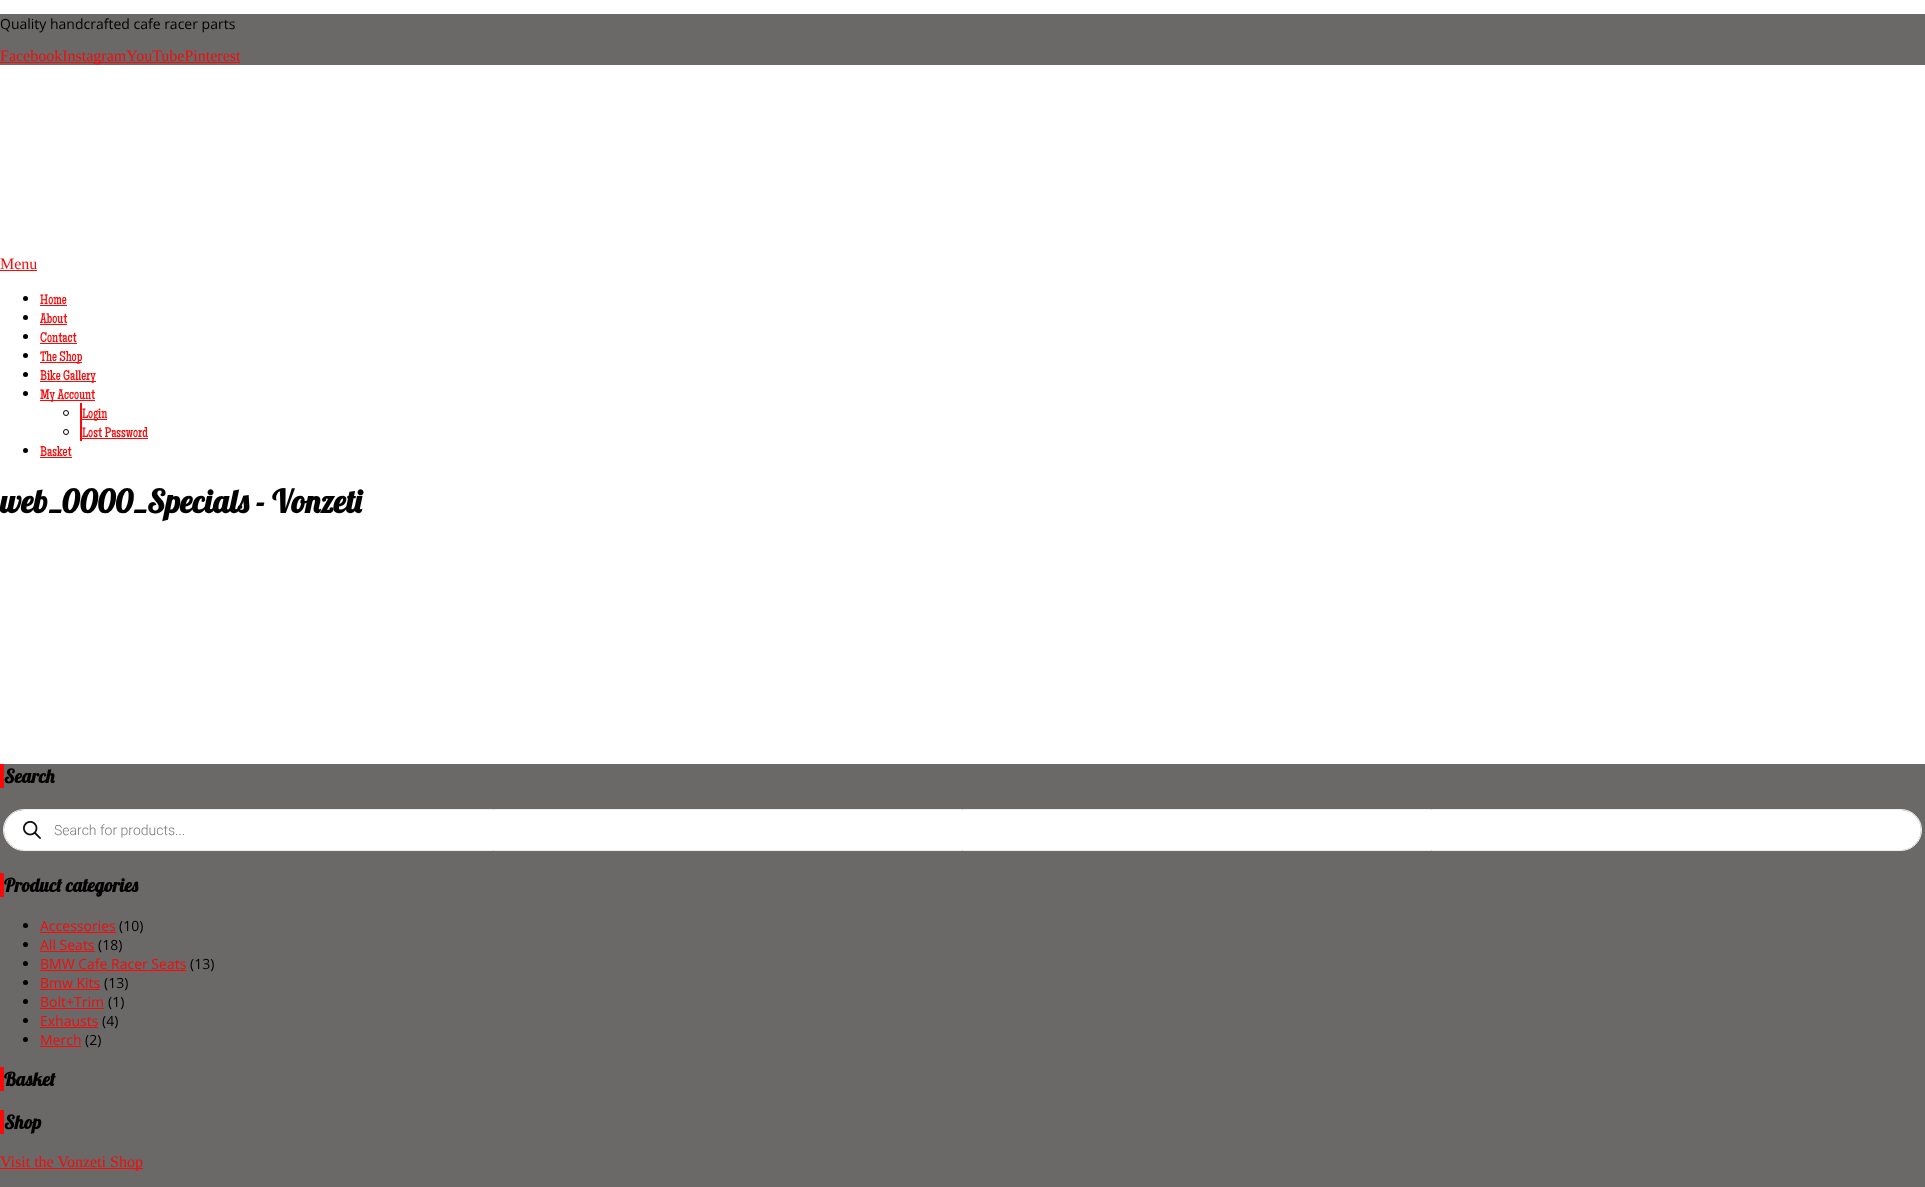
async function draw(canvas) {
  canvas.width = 1925
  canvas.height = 1187
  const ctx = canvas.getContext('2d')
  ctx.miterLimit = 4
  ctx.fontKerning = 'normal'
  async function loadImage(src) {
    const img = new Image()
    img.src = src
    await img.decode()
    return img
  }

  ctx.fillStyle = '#fff'
  ctx.fillRect(0, 0, 1925, 1187)
  ctx.fillStyle = '#6b6868'
  ctx.fillRect(0, 14, 1925, 51)
  ctx.font = '14px Open Sans'
  ctx.fillStyle = '#000'
  ctx.fillText('Quality handcrafted cafe racer parts', 0, 29)
  ctx.fillStyle = '#f70a0a'
  ctx.fillRect(0, 62, 240, 1)
  ctx.font = '16px Liberation Serif'
  ctx.fillText('FacebookInstagramYouTubePinterest', 0, 61)
  ctx.fillText('Menu', 0, 269)
  ctx.fillRect(0, 270, 37, 1)
  ctx.fillStyle = '#000'
  ctx.beginPath()
  ctx.arc(25.5, 298.5, 2.5, 0, 2 * Math.PI)
  ctx.fill()
  ctx.font = '14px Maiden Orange'
  ctx.fillStyle = '#f70a0a'
  ctx.fillText('Home', 40, 304)
  ctx.fillRect(40, 305, 27, 1)
  ctx.fillStyle = '#000'
  ctx.beginPath()
  ctx.arc(25.5, 317.5, 2.5, 0, 2 * Math.PI)
  ctx.fill()
  ctx.fillStyle = '#f70a0a'
  ctx.fillText('About', 40, 323)
  ctx.fillRect(40, 324, 27, 1)
  ctx.fillStyle = '#000'
  ctx.beginPath()
  ctx.arc(25.5, 336.5, 2.5, 0, 2 * Math.PI)
  ctx.fill()
  ctx.fillStyle = '#f70a0a'
  ctx.fillText('Contact', 40, 342)
  ctx.fillRect(40, 343, 37, 1)
  ctx.fillStyle = '#000'
  ctx.beginPath()
  ctx.arc(25.5, 355.5, 2.5, 0, 2 * Math.PI)
  ctx.fill()
  ctx.fillStyle = '#f70a0a'
  ctx.fillRect(40, 362, 42, 1)
  ctx.fillText('The Shop', 40, 361)
  ctx.fillStyle = '#000'
  ctx.beginPath()
  ctx.arc(25.5, 374.5, 2.5, 0, 2 * Math.PI)
  ctx.fill()
  ctx.fillStyle = '#f70a0a'
  ctx.fillRect(40, 381, 56, 1)
  ctx.fillText('Bike Gallery', 40, 380)
  ctx.fillStyle = '#000'
  ctx.beginPath()
  ctx.arc(25.5, 393.5, 2.5, 0, 2 * Math.PI)
  ctx.fill()
  ctx.fillStyle = '#f70a0a'
  ctx.fillRect(40, 400, 55, 1)
  ctx.fillText('My Account', 40, 399)
  ctx.fillRect(80, 403, 2, 38)
  ctx.beginPath()
  ctx.arc(66, 413, 2.5, 0, 2 * Math.PI)
  ctx.strokeStyle = '#000'
  ctx.stroke()
  ctx.fillRect(82, 419, 25, 1)
  ctx.fillText('Login', 82, 418)
  ctx.beginPath()
  ctx.arc(66, 432, 2.5, 0, 2 * Math.PI)
  ctx.stroke()
  ctx.fillText('Lost Password', 82, 437)
  ctx.fillRect(82, 438, 66, 1)
  ctx.fillStyle = '#000'
  ctx.beginPath()
  ctx.arc(25.5, 450.5, 2.5, 0, 2 * Math.PI)
  ctx.fill()
  ctx.fillStyle = '#f70a0a'
  ctx.fillText('Basket', 40, 456)
  ctx.fillRect(40, 457, 32, 1)
  ctx.font = 'bold 32px Lobster'
  ctx.fillStyle = '#000'
  ctx.fillText('web_0000_Specials - Vonzeti', 0, 513)
  ctx.fillStyle = '#6b6868'
  ctx.fillRect(0, 764, 1925, 423)
  ctx.fillStyle = '#f70a0a'
  ctx.fillRect(0, 764, 4, 24)
  ctx.font = 'bold 18.75px Lobster'
  ctx.fillStyle = '#000'
  ctx.fillText('Search', 4, 783)
  ctx.beginPath()
  ctx.roundRect(3.5, 809.5, 1918, 41, 20.5)
  ctx.strokeStyle = '#eee'
  ctx.stroke()
  ctx.fillStyle = '#fff'
  ctx.beginPath()
  ctx.roundRect(4, 810, 1917, 40, 20)
  ctx.fill()
  ctx.drawImage(await loadImage('image0.png'), 23, 821, 18, 18)
  ctx.font = '300 14px Roboto'
  ctx.fillStyle = '#777'
  ctx.fillText('Search for products...', 54, 835)
  ctx.fillStyle = '#f70a0a'
  ctx.fillRect(0, 873, 4, 24)
  ctx.font = 'bold 18.75px Lobster'
  ctx.fillStyle = '#000'
  ctx.fillText('Product categories', 4, 892)
  ctx.beginPath()
  ctx.arc(25.5, 925.5, 2.5, 0, 2 * Math.PI)
  ctx.fill()
  ctx.font = '14px Open Sans'
  ctx.fillStyle = '#f70a0a'
  ctx.fillText('Accessories', 40, 931)
  ctx.fillRect(40, 932, 76, 1)
  ctx.fillStyle = '#000'
  ctx.fillText('(10)', 119, 931)
  ctx.beginPath()
  ctx.arc(25.5, 944.5, 2.5, 0, 2 * Math.PI)
  ctx.fill()
  ctx.fillStyle = '#f70a0a'
  ctx.fillText('All Seats', 40, 950)
  ctx.fillRect(40, 951, 55, 1)
  ctx.fillStyle = '#000'
  ctx.fillText('(18)', 98, 950)
  ctx.beginPath()
  ctx.arc(25.5, 963.5, 2.5, 0, 2 * Math.PI)
  ctx.fill()
  ctx.fillStyle = '#f70a0a'
  ctx.fillText('BMW Cafe Racer Seats', 40, 969)
  ctx.fillRect(40, 970, 146, 1)
  ctx.fillStyle = '#000'
  ctx.fillText('(13)', 190, 969)
  ctx.beginPath()
  ctx.arc(25.5, 982.5, 2.5, 0, 2 * Math.PI)
  ctx.fill()
  ctx.fillStyle = '#f70a0a'
  ctx.fillText('Bmw Kits', 40, 988)
  ctx.fillRect(40, 989, 60, 1)
  ctx.fillStyle = '#000'
  ctx.fillText('(13)', 104, 988)
  ctx.beginPath()
  ctx.arc(25.5, 1001.5, 2.5, 0, 2 * Math.PI)
  ctx.fill()
  ctx.fillStyle = '#f70a0a'
  ctx.fillText('Bolt+Trim', 40, 1007)
  ctx.fillRect(40, 1008, 64, 1)
  ctx.fillStyle = '#000'
  ctx.fillText('(1)', 108, 1007)
  ctx.beginPath()
  ctx.arc(25.5, 1020.5, 2.5, 0, 2 * Math.PI)
  ctx.fill()
  ctx.fillStyle = '#f70a0a'
  ctx.fillText('Exhausts', 40, 1026)
  ctx.fillRect(40, 1027, 58, 1)
  ctx.fillStyle = '#000'
  ctx.fillText('(4)', 102, 1026)
  ctx.beginPath()
  ctx.arc(25.5, 1039.5, 2.5, 0, 2 * Math.PI)
  ctx.fill()
  ctx.fillStyle = '#f70a0a'
  ctx.fillText('Merch', 40, 1045)
  ctx.fillRect(40, 1046, 41, 1)
  ctx.fillStyle = '#000'
  ctx.fillText('(2)', 85, 1045)
  ctx.fillStyle = '#f70a0a'
  ctx.fillRect(0, 1067, 4, 24)
  ctx.font = 'bold 18.75px Lobster'
  ctx.fillStyle = '#000'
  ctx.fillText('Basket', 4, 1086)
  ctx.fillStyle = '#f70a0a'
  ctx.fillRect(0, 1110, 4, 24)
  ctx.fillStyle = '#000'
  ctx.fillText('Shop', 4, 1129)
  ctx.fillStyle = '#f70a0a'
  ctx.fillRect(0, 1168, 143, 1)
  ctx.font = '16px Liberation Serif'
  ctx.fillText('Visit the Vonzeti Shop', 0, 1167)
}

draw(document.querySelector('canvas'))
